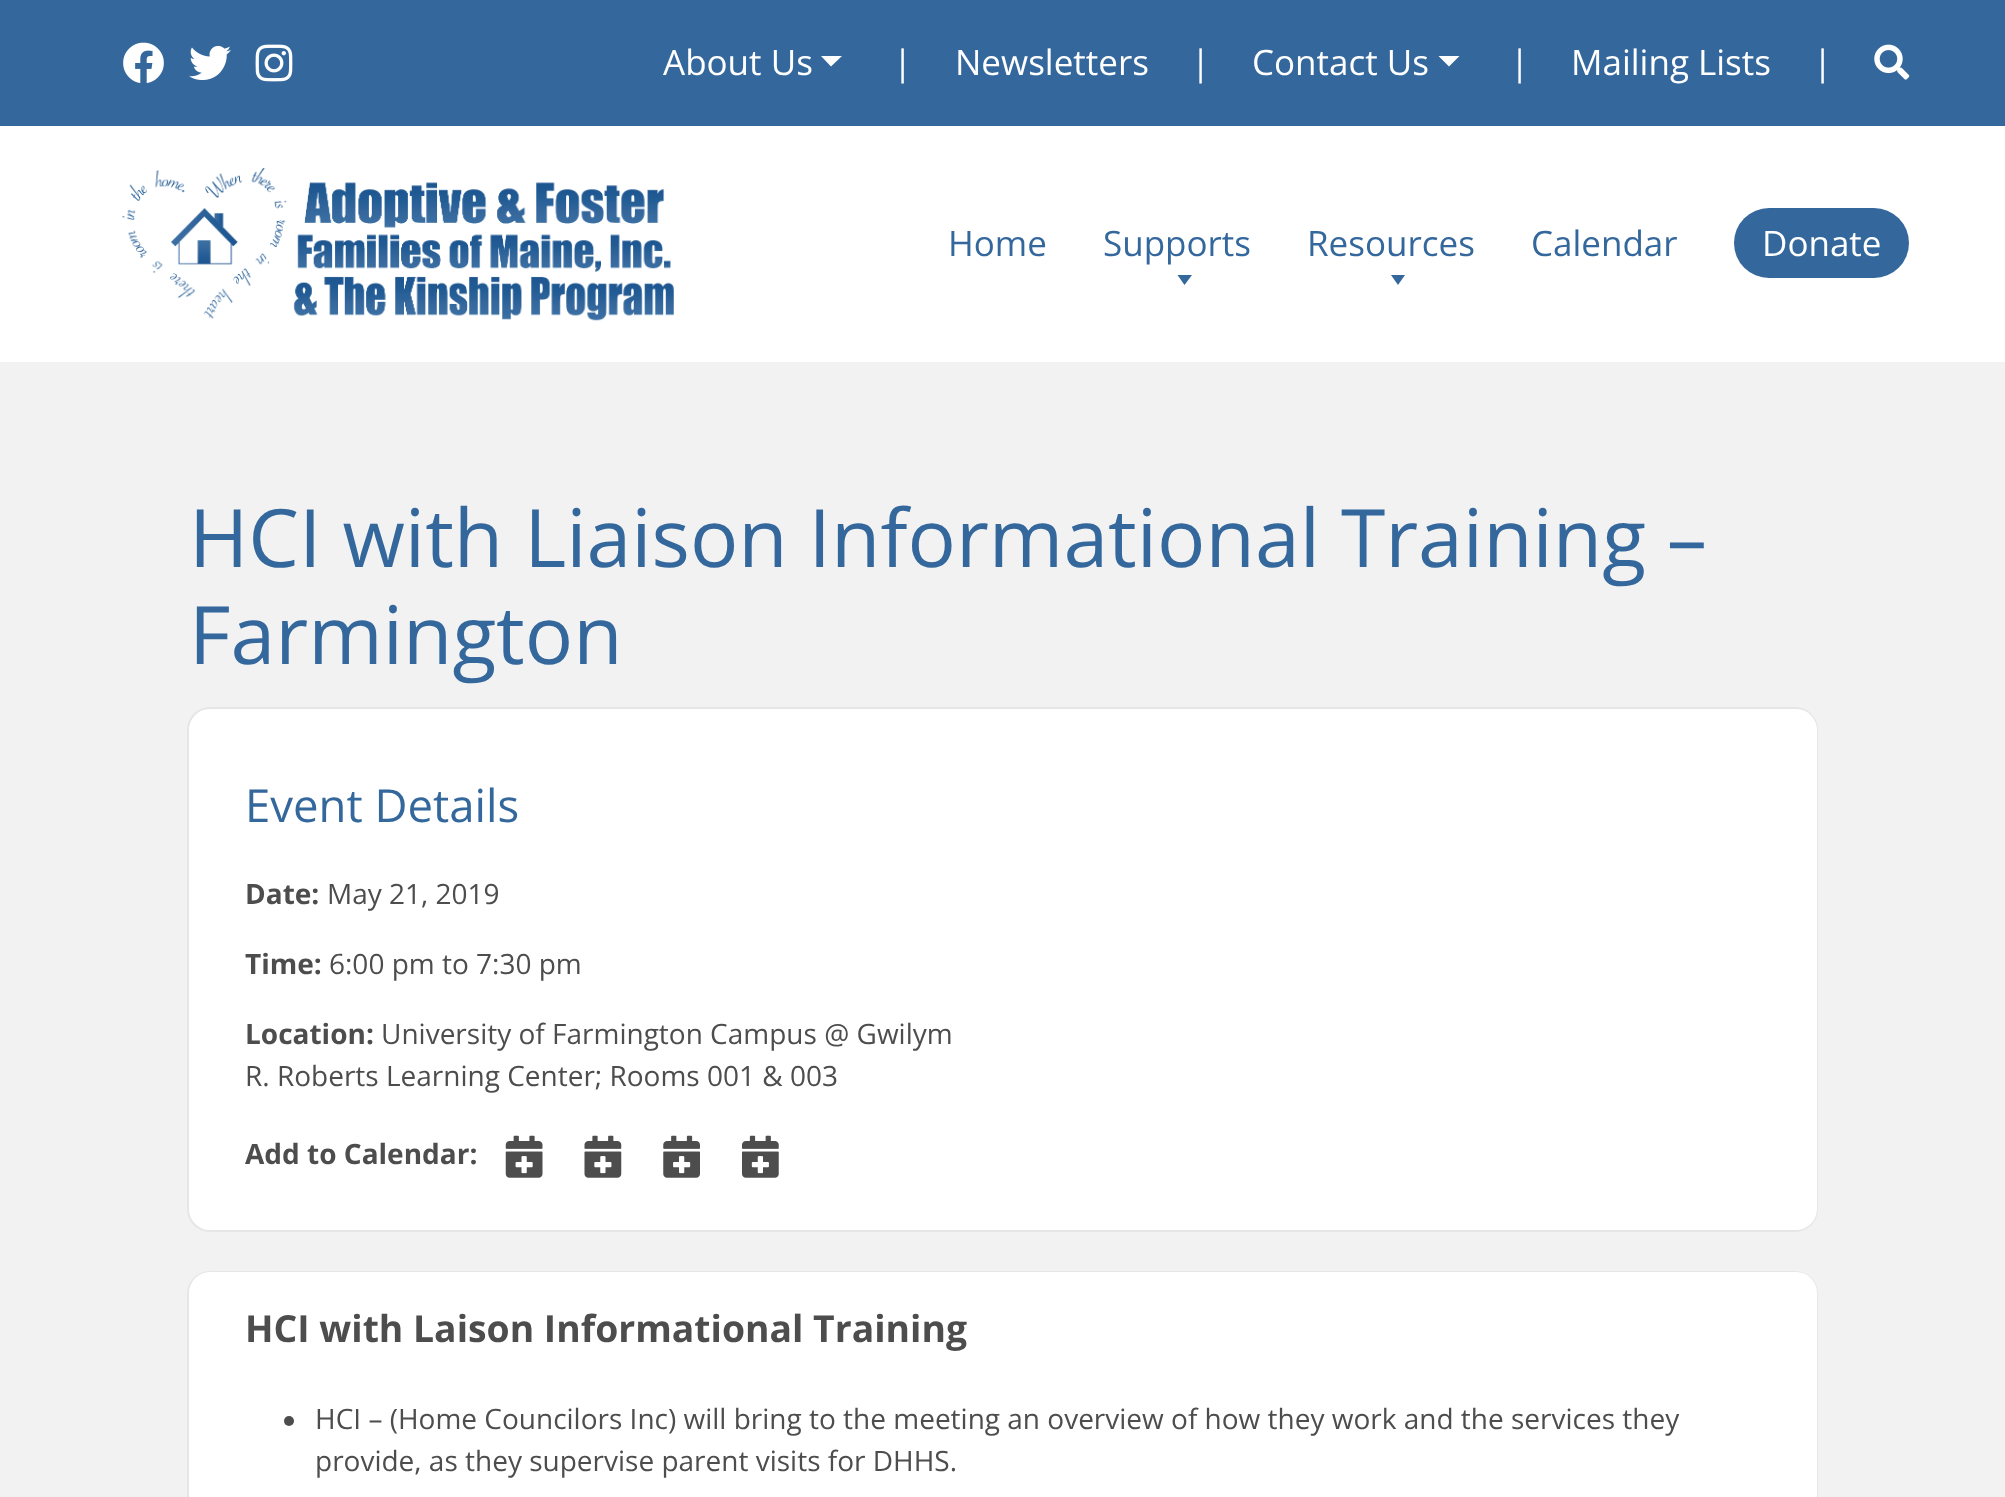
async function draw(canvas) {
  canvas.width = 2005
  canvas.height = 1497
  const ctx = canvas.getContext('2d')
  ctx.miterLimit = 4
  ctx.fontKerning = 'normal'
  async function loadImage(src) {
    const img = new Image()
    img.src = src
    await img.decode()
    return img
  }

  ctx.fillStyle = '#f2f2f2'
  ctx.fillRect(0, 0, 2005, 1497)
  ctx.fillStyle = '#34689d'
  ctx.fillRect(0, 0, 2005, 126)
  ctx.drawImage(await loadImage('image0.png'), 123, 42, 41, 41)
  ctx.drawImage(await loadImage('image1.png'), 189, 45, 42, 36)
  ctx.drawImage(await loadImage('image2.png'), 255, 44, 38, 38)
  ctx.font = '35px Open Sans'
  ctx.fillStyle = '#fff'
  ctx.fillText('About Us', 663, 75)
  ctx.beginPath()
  ctx.moveTo(821, 56)
  ctx.lineTo(842, 56)
  ctx.lineTo(831, 66.5)
  ctx.closePath()
  ctx.fill()
  ctx.fillText('|', 893, 75)
  ctx.fillText('Newsletters', 955, 75)
  ctx.fillText('|', 1191, 75)
  ctx.fillText('Contact Us', 1252, 75)
  ctx.beginPath()
  ctx.moveTo(1438.5, 56)
  ctx.lineTo(1459.5, 56)
  ctx.lineTo(1449, 66.5)
  ctx.closePath()
  ctx.fill()
  ctx.fillText('|', 1510, 75)
  ctx.fillText('Mailing Lists', 1571, 75)
  ctx.fillText('|', 1813, 75)
  ctx.drawImage(await loadImage('image3.png'), 1874, 44, 36, 36)
  ctx.fillRect(0, 126, 2005, 236)
  ctx.drawImage(await loadImage('image4.png'), 122, 168, 552, 153)
  ctx.fillStyle = '#34689d'
  ctx.fillText('Home', 948, 256)
  ctx.fillText('Supports', 1103, 256)
  ctx.beginPath()
  ctx.moveTo(1192, 275)
  ctx.lineTo(1184.5, 285)
  ctx.lineTo(1177.5, 275)
  ctx.closePath()
  ctx.fill()
  ctx.fillText('Resources', 1307, 256)
  ctx.beginPath()
  ctx.moveTo(1405, 275)
  ctx.lineTo(1398, 285)
  ctx.lineTo(1391, 275)
  ctx.closePath()
  ctx.fill()
  ctx.fillText('Calendar', 1531, 256)
  ctx.beginPath()
  ctx.roundRect(1734, 208, 175, 70, 35)
  ctx.fill()
  ctx.fillStyle = '#fff'
  ctx.fillText('Donate', 1762, 256)
  ctx.font = '80.5px Open Sans'
  ctx.fillStyle = '#34689d'
  ctx.fillText('HCI with Liaison Informational Training –', 189, 567)
  ctx.fillText('Farmington', 189, 664)
  ctx.beginPath()
  ctx.roundRect(188, 708, 1629, 523, 22)
  ctx.strokeStyle = '#e5e6e8'
  ctx.lineWidth = 2
  ctx.stroke()
  ctx.fillStyle = '#fff'
  ctx.beginPath()
  ctx.roundRect(189, 709, 1628, 521, 21)
  ctx.fill()
  ctx.font = '45.5px Open Sans'
  ctx.fillStyle = '#34689d'
  ctx.fillText('Event Details', 245, 822)
  ctx.font = 'bold 28px Open Sans'
  ctx.fillStyle = '#4d4d4d'
  ctx.fillText('Date:', 245, 904)
  ctx.font = '28px Open Sans'
  ctx.fillText('May 21, 2019', 327, 904)
  ctx.font = 'bold 28px Open Sans'
  ctx.fillText('Time:', 245, 974)
  ctx.font = '28px Open Sans'
  ctx.fillText('6:00 pm to 7:30 pm', 329, 974)
  ctx.font = 'bold 28px Open Sans'
  ctx.fillText('Location:', 245, 1044)
  ctx.font = '28px Open Sans'
  ctx.fillText('University of Farmington Campus @ Gwilym', 381, 1044)
  ctx.fillText('R. Roberts Learning Center; Rooms 001 & 003', 245, 1086)
  ctx.font = 'bold 28px Open Sans'
  ctx.fillText('Add to Calendar:', 245, 1164)
  ctx.drawImage(await loadImage('image5.png'), 505, 1135, 38, 43)
  ctx.drawImage(await loadImage('image6.png'), 584, 1135, 38, 43)
  ctx.drawImage(await loadImage('image7.png'), 663, 1135, 37, 43)
  ctx.drawImage(await loadImage('image8.png'), 742, 1135, 37, 43)
  ctx.beginPath()
  ctx.roundRect(188, 1272, 1629, 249, 22)
  ctx.stroke()
  ctx.fillStyle = '#fff'
  ctx.beginPath()
  ctx.roundRect(189, 1272, 1628, 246, 21)
  ctx.fill()
  ctx.font = 'bold 37.3px Open Sans'
  ctx.fillStyle = '#4d4d4d'
  ctx.fillText('HCI with Laison Informational Training', 245, 1342)
  ctx.beginPath()
  ctx.arc(289, 1421, 5, 0, 2 * Math.PI)
  ctx.fill()
  ctx.font = '28px Open Sans'
  ctx.fillText('HCI – (Home Councilors Inc) will bring to the meeting an overview of how they work and the services they', 315, 1429)
  ctx.fillText('provide, as they supervise parent visits for DHHS.', 315, 1471)
}

draw(document.querySelector('canvas'))
